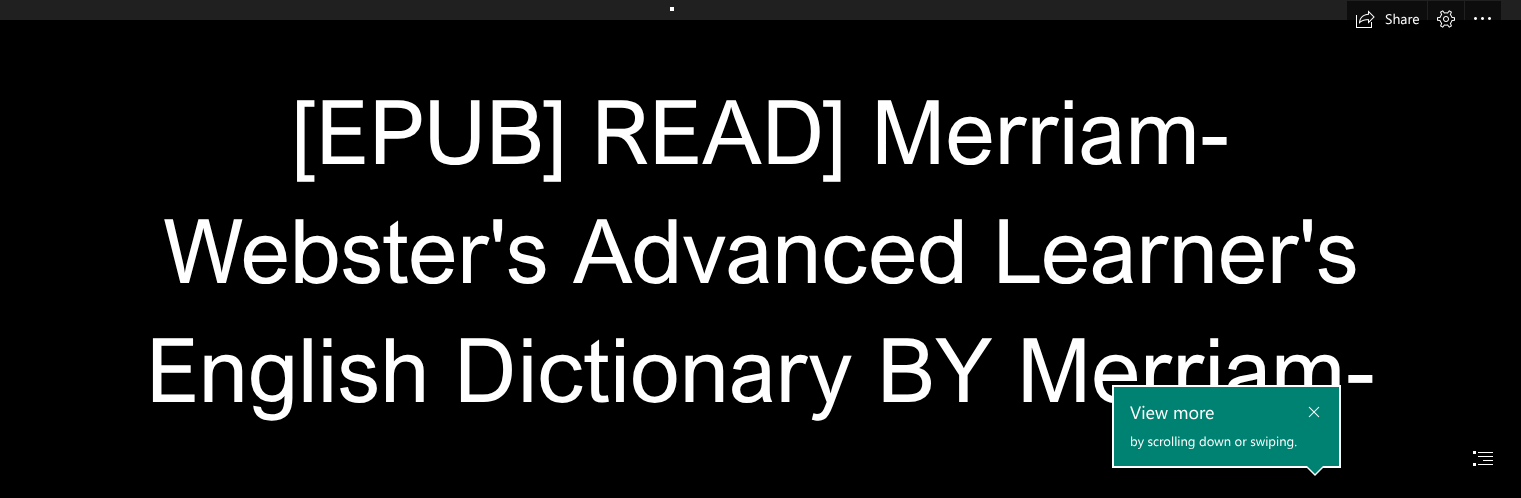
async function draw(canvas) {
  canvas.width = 1521
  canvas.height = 498
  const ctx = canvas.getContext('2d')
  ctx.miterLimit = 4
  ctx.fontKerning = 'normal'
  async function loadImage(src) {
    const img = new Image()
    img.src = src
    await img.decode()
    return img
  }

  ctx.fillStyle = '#000'
  ctx.fillRect(0, 0, 1521, 498)
  ctx.fillStyle = '#202020'
  ctx.fillRect(0, 0, 1521, 20)
  ctx.fillStyle = '#0d0d0d'
  ctx.fillRect(1347, 1, 80, 19)
  ctx.drawImage(await loadImage('image0.png'), 1356, 10, 19, 18)
  ctx.font = '14px Segoe UI'
  ctx.fillStyle = '#fff'
  ctx.fillText('Share', 1385, 24)
  ctx.fillStyle = '#0d0d0d'
  ctx.fillRect(1428, 1, 36, 19)
  ctx.drawImage(await loadImage('image1.png'), 1437, 10, 18, 18)
  ctx.fillRect(1465, 1, 36, 19)
  ctx.drawImage(await loadImage('image2.png'), 1474, 17, 17, 3)
  ctx.fillStyle = '#fff'
  ctx.fillRect(670, 7, 4, 4)
  ctx.font = '89.1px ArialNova'
  ctx.fillText('[EPUB] READ] Merriam-', 291, 164)
  ctx.fillText('Webster\'s Advanced Learner\'s', 163, 283)
  ctx.fillText('English Dictionary BY Merriam-', 146, 402)
  ctx.fillStyle = '#008272'
  ctx.beginPath()
  ctx.rect(1113, 386, 227, 81)
  ctx.fill()
  ctx.strokeStyle = '#fff'
  ctx.lineWidth = 2
  ctx.stroke()
  ctx.font = '18px Segoe UI'
  ctx.fillStyle = '#fff'
  ctx.fillText('View more', 1130, 419)
  ctx.font = '13px Segoe UI'
  ctx.fillText('by scrolling down or swiping.', 1130, 446)
  ctx.drawImage(await loadImage('image3.png'), 1308, 406, 12, 12)
  ctx.beginPath()
  ctx.moveTo(1305, 466)
  ctx.lineTo(1325, 466)
  ctx.lineTo(1315, 476)
  ctx.closePath()
  ctx.fill()
  ctx.fillStyle = '#008272'
  ctx.beginPath()
  ctx.moveTo(1307, 466)
  ctx.lineTo(1323, 466)
  ctx.lineTo(1315, 474)
  ctx.closePath()
  ctx.fill()
  ctx.drawImage(await loadImage('image4.png'), 1473, 451, 20, 15)
}

draw(document.querySelector('canvas'))
